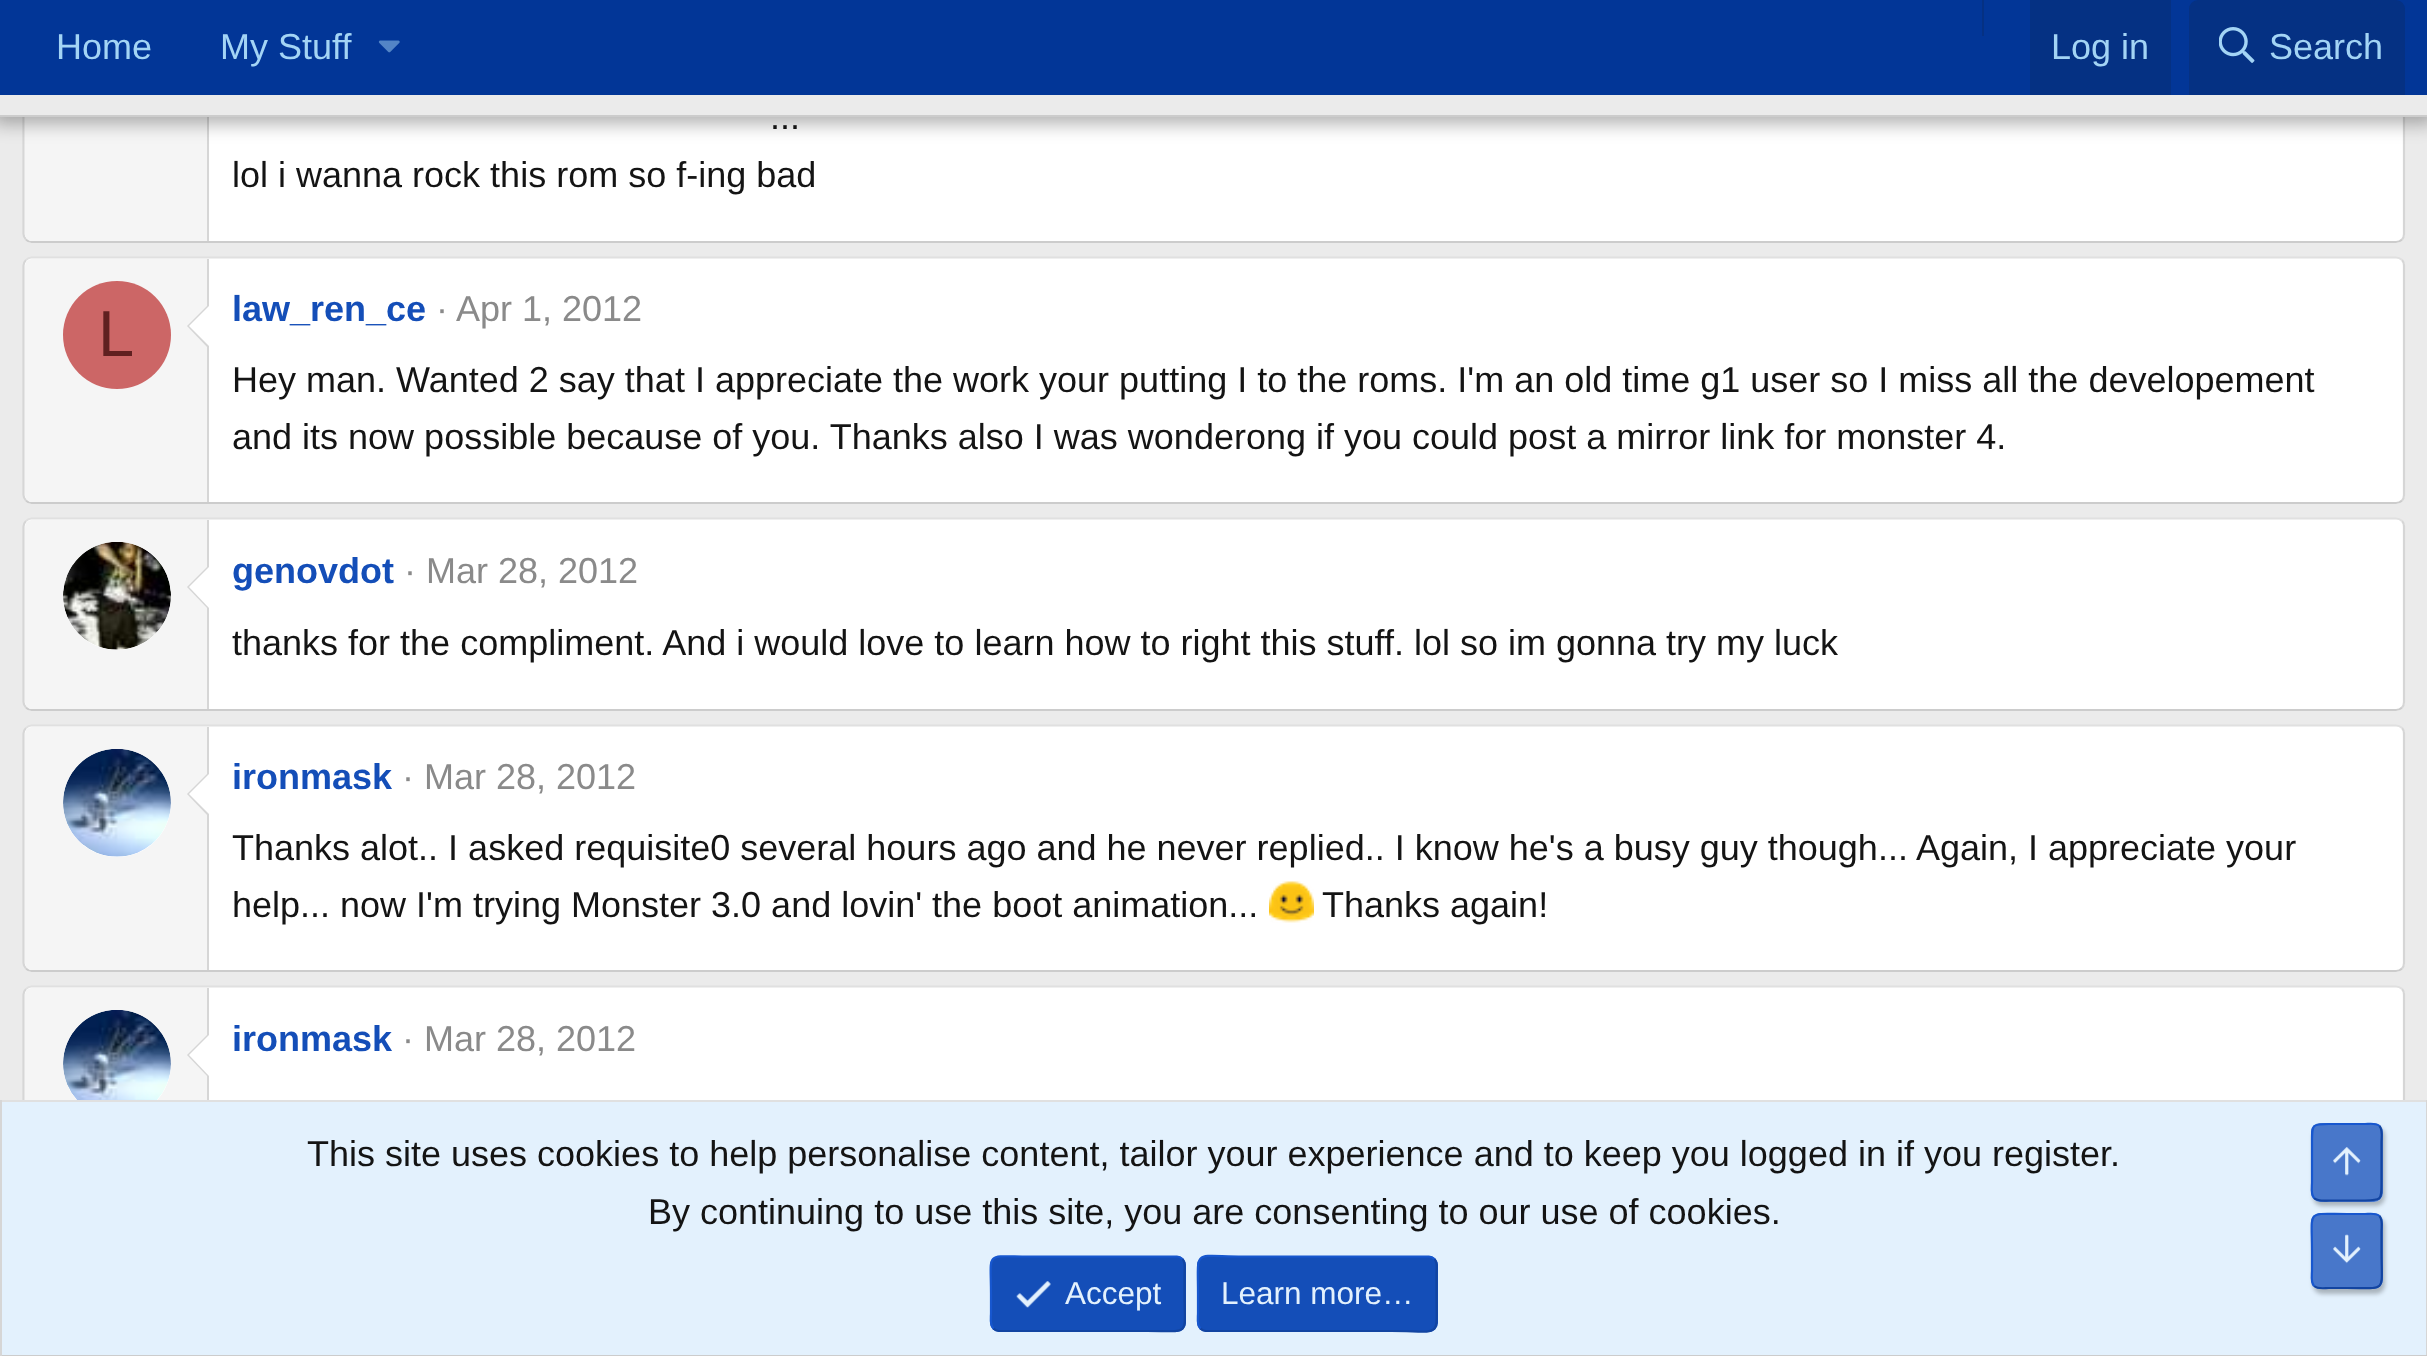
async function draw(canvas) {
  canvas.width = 2427
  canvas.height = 1356
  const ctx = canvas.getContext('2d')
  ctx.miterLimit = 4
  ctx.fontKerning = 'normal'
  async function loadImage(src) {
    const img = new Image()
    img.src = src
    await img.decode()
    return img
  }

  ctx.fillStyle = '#ebebeb'
  ctx.fillRect(0, 0, 2427, 1356)
  ctx.fillStyle = '#fff'
  ctx.beginPath()
  ctx.roundRect(23, -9, 2382, 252, 9)
  ctx.fill()
  ctx.beginPath()
  ctx.moveTo(2402, -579.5)
  ctx.bezierCurveTo(2403.5, -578, 2404, -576, 2404, -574)
  ctx.lineTo(2404, 234)
  ctx.bezierCurveTo(2404, 236, 2403.5, 238, 2402, 239.5)
  ctx.strokeStyle = '#d6d6d6'
  ctx.lineWidth = 2.2
  ctx.stroke()
  ctx.beginPath()
  ctx.moveTo(2402, 239.5)
  ctx.bezierCurveTo(2400.5, 241, 2398.5, 242, 2396, 242)
  ctx.lineTo(31.5, 242)
  ctx.bezierCurveTo(29.5, 242, 27.5, 241, 26, 239.5)
  ctx.strokeStyle = '#ccc'
  ctx.stroke()
  ctx.beginPath()
  ctx.moveTo(26, 239.5)
  ctx.bezierCurveTo(24.5, 238, 23.5, 236, 23.5, 234)
  ctx.lineTo(23.5, -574)
  ctx.bezierCurveTo(23.5, -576, 24.5, -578, 26, -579.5)
  ctx.strokeStyle = '#d6d6d6'
  ctx.stroke()
  ctx.fillStyle = '#f5f5f5'
  ctx.beginPath()
  ctx.moveTo(32, -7)
  ctx.lineTo(209, -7)
  ctx.lineTo(209, 241)
  ctx.lineTo(32, 241)
  ctx.bezierCurveTo(28, 241, 25, 238, 25, 234)
  ctx.lineTo(25, 0)
  ctx.bezierCurveTo(25, -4, 28, -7, 32, -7)
  ctx.closePath()
  ctx.fill()
  ctx.fillStyle = '#d6d6d6'
  ctx.fillRect(207, 117, 2, 124)
  ctx.fillStyle = '#0000004d'
  ctx.filter = 'blur(9px)'
  ctx.beginPath()
  ctx.rect(-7, -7, 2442, 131)
  ctx.fill()
  ctx.filter = 'none'
  ctx.fillStyle = '#023697'
  ctx.fillRect(0, 0, 2427, 95)
  ctx.font = '36px Liberation Sans'
  ctx.fillStyle = '#a3d4f5'
  ctx.fillText('Home', 56, 59)
  ctx.fillText('My Stuff', 220, 59)
  ctx.drawImage(await loadImage('image0.png'), 378, 40, 22, 13)
  ctx.fillStyle = '#053183'
  ctx.fillRect(1982, 0, 2, 36)
  ctx.fillRect(2030, 0, 141, 95)
  ctx.fillStyle = '#a3d4f5'
  ctx.fillText('Log in', 2051, 59)
  ctx.fillStyle = '#053183'
  ctx.beginPath()
  ctx.roundRect(2189, 0, 216, 95, [9, 9, 0, 0])
  ctx.fill()
  ctx.drawImage(await loadImage('image1.png'), 2219, 27, 36, 36)
  ctx.fillStyle = '#a3d4f5'
  ctx.fillText('Search', 2269, 59)
  ctx.fillStyle = '#ebebeb'
  ctx.fillRect(0, 95, 2427, 20)
  ctx.fillStyle = '#ccc'
  ctx.fillRect(0, 115, 2427, 2)
  ctx.fillStyle = '#141414'
  ctx.fillText('...', 770, 129)
  ctx.fillText('lol i wanna rock this rom so f-ing bad', 232, 187)
  ctx.fillStyle = '#fff'
  ctx.beginPath()
  ctx.roundRect(23, 257, 2382, 247, 9)
  ctx.fill()
  ctx.beginPath()
  ctx.moveTo(26, 260)
  ctx.bezierCurveTo(27.5, 258.5, 29.5, 257.5, 31.5, 257.5)
  ctx.lineTo(2396, 257.5)
  ctx.bezierCurveTo(2398.5, 257.5, 2400.5, 258.5, 2402, 260)
  ctx.strokeStyle = '#e0e0e0'
  ctx.stroke()
  ctx.beginPath()
  ctx.moveTo(2402, 260)
  ctx.bezierCurveTo(2403.5, 261.5, 2404, 263.5, 2404, 265.5)
  ctx.lineTo(2404, 495)
  ctx.bezierCurveTo(2404, 497, 2403.5, 499, 2402, 500.5)
  ctx.strokeStyle = '#d6d6d6'
  ctx.stroke()
  ctx.beginPath()
  ctx.moveTo(2402, 500.5)
  ctx.bezierCurveTo(2400.5, 502, 2398.5, 503, 2396, 503)
  ctx.lineTo(31.5, 503)
  ctx.bezierCurveTo(29.5, 503, 27.5, 502, 26, 500.5)
  ctx.strokeStyle = '#ccc'
  ctx.stroke()
  ctx.beginPath()
  ctx.moveTo(26, 500.5)
  ctx.bezierCurveTo(24.5, 499, 23.5, 497, 23.5, 495)
  ctx.lineTo(23.5, 265.5)
  ctx.bezierCurveTo(23.5, 263.5, 24.5, 261.5, 26, 260)
  ctx.strokeStyle = '#d6d6d6'
  ctx.stroke()
  ctx.fillStyle = '#f5f5f5'
  ctx.beginPath()
  ctx.roundRect(25, 259, 184, 243, [7, 0, 0, 7])
  ctx.fill()
  ctx.fillStyle = '#d6d6d6'
  ctx.fillRect(207, 259, 2, 243)
  ctx.fillStyle = '#c66'
  ctx.beginPath()
  ctx.arc(117, 335, 54, 0, 2 * Math.PI)
  ctx.fill()
  ctx.font = '65px Liberation Sans'
  ctx.fillStyle = '#602020'
  ctx.fillText('L', 98, 356)
  ctx.fillStyle = '#d6d6d6'
  ctx.beginPath()
  ctx.moveTo(209, 304)
  ctx.lineTo(209, 349)
  ctx.lineTo(187, 326)
  ctx.closePath()
  ctx.fill()
  ctx.fillStyle = '#fff'
  ctx.beginPath()
  ctx.moveTo(209, 306)
  ctx.lineTo(209, 346)
  ctx.lineTo(189, 326)
  ctx.closePath()
  ctx.fill()
  ctx.font = 'bold 36px Liberation Sans'
  ctx.fillStyle = '#144eb8'
  ctx.fillText('law_ren_ce', 232, 321)
  ctx.font = '36px Liberation Sans'
  ctx.fillStyle = '#8a8a8a'
  ctx.fillText('· Apr 1, 2012', 436, 321)
  ctx.fillStyle = '#141414'
  ctx.fillText('Hey man. Wanted 2 say that I appreciate the work your putting I to the roms. I\'m an old time g1 user so I miss all the developement', 232, 392)
  ctx.fillText('and its now possible because of you. Thanks also I was wonderong if you could post a mirror link for monster 4.', 232, 449)
  ctx.fillStyle = '#fff'
  ctx.beginPath()
  ctx.roundRect(23, 518, 2382, 193, 9)
  ctx.fill()
  ctx.beginPath()
  ctx.moveTo(26, 521)
  ctx.bezierCurveTo(27.5, 519.5, 29.5, 518.5, 31.5, 518.5)
  ctx.lineTo(2396, 518.5)
  ctx.bezierCurveTo(2398.5, 518.5, 2400.5, 519.5, 2402, 521)
  ctx.strokeStyle = '#e0e0e0'
  ctx.stroke()
  ctx.beginPath()
  ctx.moveTo(2402, 521)
  ctx.bezierCurveTo(2403.5, 522.5, 2404, 524.5, 2404, 526.5)
  ctx.lineTo(2404, 702)
  ctx.bezierCurveTo(2404, 704, 2403.5, 706, 2402, 707.5)
  ctx.strokeStyle = '#d6d6d6'
  ctx.stroke()
  ctx.beginPath()
  ctx.moveTo(2402, 707.5)
  ctx.bezierCurveTo(2400.5, 709, 2398.5, 710, 2396, 710)
  ctx.lineTo(31.5, 710)
  ctx.bezierCurveTo(29.5, 710, 27.5, 709, 26, 707.5)
  ctx.strokeStyle = '#ccc'
  ctx.stroke()
  ctx.beginPath()
  ctx.moveTo(26, 707.5)
  ctx.bezierCurveTo(24.5, 706, 23.5, 704, 23.5, 702)
  ctx.lineTo(23.5, 526.5)
  ctx.bezierCurveTo(23.5, 524.5, 24.5, 522.5, 26, 521)
  ctx.strokeStyle = '#d6d6d6'
  ctx.stroke()
  ctx.fillStyle = '#f5f5f5'
  ctx.beginPath()
  ctx.roundRect(25, 520, 184, 189, [7, 0, 0, 7])
  ctx.fill()
  ctx.fillStyle = '#d6d6d6'
  ctx.fillRect(207, 520, 2, 189)
  ctx.fillStyle = '#fff'
  ctx.beginPath()
  ctx.arc(117, 596, 54, 0, 2 * Math.PI)
  ctx.fill()
  ctx.drawImage(await loadImage('image2.png'), 63, 542, 108, 108)
  ctx.fillStyle = '#d6d6d6'
  ctx.beginPath()
  ctx.moveTo(209, 565)
  ctx.lineTo(209, 610)
  ctx.lineTo(187, 587)
  ctx.closePath()
  ctx.fill()
  ctx.fillStyle = '#fff'
  ctx.beginPath()
  ctx.moveTo(209, 567)
  ctx.lineTo(209, 608)
  ctx.lineTo(189, 587)
  ctx.closePath()
  ctx.fill()
  ctx.font = 'bold 36px Liberation Sans'
  ctx.fillStyle = '#144eb8'
  ctx.fillText('genovdot', 232, 583)
  ctx.font = '36px Liberation Sans'
  ctx.fillStyle = '#8a8a8a'
  ctx.fillText('· Mar 28, 2012', 404, 583)
  ctx.fillStyle = '#141414'
  ctx.fillText('thanks for the compliment. And i would love to learn how to right this stuff. lol so im gonna try my luck', 232, 655)
  ctx.fillStyle = '#fff'
  ctx.beginPath()
  ctx.roundRect(23, 725, 2382, 247, 9)
  ctx.fill()
  ctx.beginPath()
  ctx.moveTo(26, 728)
  ctx.bezierCurveTo(27.5, 726.5, 29.5, 725.5, 31.5, 725.5)
  ctx.lineTo(2396, 725.5)
  ctx.bezierCurveTo(2398.5, 725.5, 2400.5, 726.5, 2402, 728)
  ctx.strokeStyle = '#e0e0e0'
  ctx.stroke()
  ctx.beginPath()
  ctx.moveTo(2402, 728)
  ctx.bezierCurveTo(2403.5, 729.5, 2404, 731.5, 2404, 733.5)
  ctx.lineTo(2404, 963)
  ctx.bezierCurveTo(2404, 965, 2403.5, 967, 2402, 968.5)
  ctx.strokeStyle = '#d6d6d6'
  ctx.stroke()
  ctx.beginPath()
  ctx.moveTo(2402, 968.5)
  ctx.bezierCurveTo(2400.5, 970, 2398.5, 971, 2396, 971)
  ctx.lineTo(31.5, 971)
  ctx.bezierCurveTo(29.5, 971, 27.5, 970, 26, 968.5)
  ctx.strokeStyle = '#ccc'
  ctx.stroke()
  ctx.beginPath()
  ctx.moveTo(26, 968.5)
  ctx.bezierCurveTo(24.5, 967, 23.5, 965, 23.5, 963)
  ctx.lineTo(23.5, 733.5)
  ctx.bezierCurveTo(23.5, 731.5, 24.5, 729.5, 26, 728)
  ctx.strokeStyle = '#d6d6d6'
  ctx.stroke()
  ctx.fillStyle = '#f5f5f5'
  ctx.beginPath()
  ctx.roundRect(25, 727, 184, 243, [7, 0, 0, 7])
  ctx.fill()
  ctx.fillStyle = '#d6d6d6'
  ctx.fillRect(207, 727, 2, 243)
  ctx.fillStyle = '#fff'
  ctx.beginPath()
  ctx.arc(117, 803, 54, 0, 2 * Math.PI)
  ctx.fill()
  ctx.drawImage(await loadImage('image3.png'), 63, 749, 108, 108)
  ctx.fillStyle = '#d6d6d6'
  ctx.beginPath()
  ctx.moveTo(209, 772)
  ctx.lineTo(209, 817)
  ctx.lineTo(187, 794)
  ctx.closePath()
  ctx.fill()
  ctx.fillStyle = '#fff'
  ctx.beginPath()
  ctx.moveTo(209, 774)
  ctx.lineTo(209, 814)
  ctx.lineTo(189, 794)
  ctx.closePath()
  ctx.fill()
  ctx.font = 'bold 36px Liberation Sans'
  ctx.fillStyle = '#144eb8'
  ctx.fillText('ironmask', 232, 789)
  ctx.font = '36px Liberation Sans'
  ctx.fillStyle = '#8a8a8a'
  ctx.fillText('· Mar 28, 2012', 402, 789)
  ctx.fillStyle = '#141414'
  ctx.fillText('Thanks alot.. I asked requisite0 several hours ago and he never replied.. I know he\'s a busy guy though... Again, I appreciate your', 232, 860)
  ctx.fillText('help... now I\'m trying Monster 3.0 and lovin\' the boot animation...', 232, 917)
  ctx.drawImage(await loadImage('image4.png'), 1269, 881, 45, 42)
  ctx.fillText('Thanks again!', 1322, 917)
  ctx.fillStyle = '#fff'
  ctx.beginPath()
  ctx.roundRect(23, 986, 2382, 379, 9)
  ctx.fill()
  ctx.beginPath()
  ctx.moveTo(26, 989)
  ctx.bezierCurveTo(27.5, 987.5, 29.5, 986.5, 31.5, 986.5)
  ctx.lineTo(2396, 986.5)
  ctx.bezierCurveTo(2398.5, 986.5, 2400.5, 987.5, 2402, 989)
  ctx.strokeStyle = '#e0e0e0'
  ctx.stroke()
  ctx.beginPath()
  ctx.moveTo(2402, 989)
  ctx.bezierCurveTo(2403.5, 990.5, 2404, 992.5, 2404, 994.5)
  ctx.lineTo(2404, 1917)
  ctx.bezierCurveTo(2404, 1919, 2403.5, 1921, 2402, 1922.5)
  ctx.strokeStyle = '#d6d6d6'
  ctx.stroke()
  ctx.beginPath()
  ctx.moveTo(26, 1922.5)
  ctx.bezierCurveTo(24.5, 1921, 23.5, 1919, 23.5, 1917)
  ctx.lineTo(23.5, 994.5)
  ctx.bezierCurveTo(23.5, 992.5, 24.5, 990.5, 26, 989)
  ctx.stroke()
  ctx.fillStyle = '#f5f5f5'
  ctx.beginPath()
  ctx.moveTo(32, 988)
  ctx.lineTo(209, 988)
  ctx.lineTo(209, 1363)
  ctx.lineTo(32, 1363)
  ctx.bezierCurveTo(28, 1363, 25, 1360, 25, 1356)
  ctx.lineTo(25, 995)
  ctx.bezierCurveTo(25, 991, 28, 988, 32, 988)
  ctx.closePath()
  ctx.fill()
  ctx.fillStyle = '#d6d6d6'
  ctx.fillRect(207, 988, 2, 112)
  ctx.fillStyle = '#fff'
  ctx.beginPath()
  ctx.arc(117, 1064, 54, 0, 2 * Math.PI)
  ctx.fill()
  ctx.drawImage(await loadImage('image5.png'), 63, 1010, 108, 90)
  ctx.fillStyle = '#d6d6d6'
  ctx.beginPath()
  ctx.moveTo(209, 1033)
  ctx.lineTo(209, 1078)
  ctx.lineTo(187, 1055)
  ctx.closePath()
  ctx.fill()
  ctx.fillStyle = '#fff'
  ctx.beginPath()
  ctx.moveTo(209, 1035)
  ctx.lineTo(209, 1076)
  ctx.lineTo(189, 1055)
  ctx.closePath()
  ctx.fill()
  ctx.font = 'bold 36px Liberation Sans'
  ctx.fillStyle = '#144eb8'
  ctx.fillText('ironmask', 232, 1051)
  ctx.font = '36px Liberation Sans'
  ctx.fillStyle = '#8a8a8a'
  ctx.fillText('· Mar 28, 2012', 402, 1051)
  ctx.fillStyle = '#e3f1fd'
  ctx.fillRect(2, 1102, 2424, 253)
  ctx.fillStyle = '#e0e0e0'
  ctx.fillRect(0, 1100, 2427, 2)
  ctx.fillStyle = '#d6d6d6'
  ctx.fillRect(2426, 1100, 1, 256)
  ctx.fillStyle = '#ccc'
  ctx.fillRect(0, 1355, 2427, 1)
  ctx.fillStyle = '#d6d6d6'
  ctx.fillRect(0, 1100, 2, 256)
  ctx.fillStyle = '#141414'
  ctx.fillText('This site uses cookies to help personalise content, tailor your experience and to keep you logged in if you register.', 307, 1166)
  ctx.fillText('By continuing to use this site, you are consenting to our use of cookies.', 648, 1224)
  ctx.fillStyle = '#144eb8'
  ctx.beginPath()
  ctx.roundRect(990, 1256, 196, 76, 9)
  ctx.fill()
  ctx.beginPath()
  ctx.moveTo(1182.5, 1259)
  ctx.bezierCurveTo(1186, 1262.5, 1184.5, 1270, 1184.5, 1274)
  ctx.lineTo(1184.5, 1294)
  ctx.bezierCurveTo(1184.5, 1337, 1191.5, 1331, 1147, 1331)
  ctx.lineTo(999, 1331)
  ctx.bezierCurveTo(997, 1331, 995, 1330, 993.5, 1328.5)
  ctx.strokeStyle = '#1244a1'
  ctx.stroke()
  ctx.beginPath()
  ctx.moveTo(993.5, 1328.5)
  ctx.bezierCurveTo(989.5, 1325, 991, 1317.5, 991, 1313)
  ctx.lineTo(991, 1294)
  ctx.bezierCurveTo(991, 1250.5, 984, 1256.5, 1028.5, 1256.5)
  ctx.lineTo(1177, 1256.5)
  ctx.bezierCurveTo(1179, 1256.5, 1181, 1257.5, 1182.5, 1259)
  ctx.strokeStyle = '#1757cf'
  ctx.stroke()
  ctx.drawImage(await loadImage('image6.png'), 1016, 1281, 35, 27)
  ctx.font = '31.5px Liberation Sans'
  ctx.fillStyle = '#e3f1fd'
  ctx.fillText('Accept', 1065, 1304)
  ctx.fillStyle = '#144eb8'
  ctx.beginPath()
  ctx.roundRect(1197, 1256, 241, 76, 9)
  ctx.fill()
  ctx.beginPath()
  ctx.moveTo(1434.5, 1259)
  ctx.bezierCurveTo(1438, 1262.5, 1436.5, 1270, 1436.5, 1274)
  ctx.lineTo(1436.5, 1294)
  ctx.bezierCurveTo(1436.5, 1340, 1442.5, 1331, 1391.5, 1331)
  ctx.lineTo(1206, 1331)
  ctx.bezierCurveTo(1204, 1331, 1202, 1330, 1200.5, 1328.5)
  ctx.strokeStyle = '#1244a1'
  ctx.stroke()
  ctx.beginPath()
  ctx.moveTo(1200.5, 1328.5)
  ctx.bezierCurveTo(1196.5, 1325, 1198, 1317.5, 1198, 1313)
  ctx.lineTo(1198, 1294)
  ctx.bezierCurveTo(1198, 1247.5, 1192, 1256.5, 1243, 1256.5)
  ctx.lineTo(1429, 1256.5)
  ctx.bezierCurveTo(1431, 1256.5, 1433, 1257.5, 1434.5, 1259)
  ctx.strokeStyle = '#1757cf'
  ctx.stroke()
  ctx.fillStyle = '#e3f1fd'
  ctx.fillText('Learn more…', 1221, 1304)
  ctx.save()
  ctx.beginPath()
  ctx.moveTo(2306, 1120)
  ctx.lineTo(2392, 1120)
  ctx.lineTo(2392, 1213)
  ctx.lineTo(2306, 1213)
  ctx.closePath()
  ctx.moveTo(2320, 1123)
  ctx.lineTo(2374, 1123)
  ctx.bezierCurveTo(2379, 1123, 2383, 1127, 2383, 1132)
  ctx.lineTo(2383, 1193)
  ctx.bezierCurveTo(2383, 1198, 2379, 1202, 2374, 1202)
  ctx.lineTo(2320, 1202)
  ctx.bezierCurveTo(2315, 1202, 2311, 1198, 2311, 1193)
  ctx.lineTo(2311, 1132)
  ctx.bezierCurveTo(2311, 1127, 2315, 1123, 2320, 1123)
  ctx.closePath()
  ctx.clip('evenodd')
  ctx.fillStyle = '#00000040'
  ctx.filter = 'blur(2px)'
  ctx.beginPath()
  ctx.roundRect(2313, 1127, 72, 79, 9)
  ctx.fill()
  ctx.filter = 'none'
  ctx.restore()
  ctx.fillStyle = '#144eb8bf'
  ctx.beginPath()
  ctx.roundRect(2311, 1123, 72, 79, 9)
  ctx.fill()
  ctx.beginPath()
  ctx.moveTo(2379.5, 1126)
  ctx.bezierCurveTo(2383, 1130, 2381.5, 1137.5, 2381.5, 1142)
  ctx.lineTo(2381.5, 1182.5)
  ctx.bezierCurveTo(2381.5, 1199.5, 2382, 1200.5, 2365, 1200.5)
  ctx.lineTo(2329, 1200.5)
  ctx.bezierCurveTo(2324.5, 1200.5, 2318, 1201.5, 2314, 1198)
  ctx.strokeStyle = '#1244a1'
  ctx.stroke()
  ctx.beginPath()
  ctx.moveTo(2314, 1198)
  ctx.bezierCurveTo(2310.5, 1194, 2312, 1186.5, 2312, 1182.5)
  ctx.lineTo(2312, 1142)
  ctx.bezierCurveTo(2312, 1124.5, 2311.5, 1124, 2329, 1124)
  ctx.lineTo(2365, 1124)
  ctx.bezierCurveTo(2369, 1124, 2375.5, 1122.5, 2379.5, 1126)
  ctx.strokeStyle = '#1757cf'
  ctx.stroke()
  ctx.drawImage(await loadImage('image7.png'), 2333, 1147, 28, 29)
  ctx.save()
  ctx.beginPath()
  ctx.moveTo(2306, 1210)
  ctx.lineTo(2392, 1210)
  ctx.lineTo(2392, 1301)
  ctx.lineTo(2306, 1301)
  ctx.closePath()
  ctx.moveTo(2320, 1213)
  ctx.lineTo(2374, 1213)
  ctx.bezierCurveTo(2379, 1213, 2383, 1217, 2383, 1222)
  ctx.lineTo(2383, 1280)
  ctx.bezierCurveTo(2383, 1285, 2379, 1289, 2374, 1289)
  ctx.lineTo(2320, 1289)
  ctx.bezierCurveTo(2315, 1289, 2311, 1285, 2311, 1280)
  ctx.lineTo(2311, 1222)
  ctx.bezierCurveTo(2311, 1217, 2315, 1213, 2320, 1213)
  ctx.closePath()
  ctx.clip('evenodd')
  ctx.fillStyle = '#00000040'
  ctx.filter = 'blur(2px)'
  ctx.beginPath()
  ctx.roundRect(2313, 1217, 72, 77, 9)
  ctx.fill()
  ctx.filter = 'none'
  ctx.restore()
  ctx.beginPath()
  ctx.roundRect(2311, 1213, 72, 76, 9)
  ctx.fill()
  ctx.beginPath()
  ctx.moveTo(2379.5, 1216)
  ctx.bezierCurveTo(2383, 1220, 2381.5, 1227, 2381.5, 1231.5)
  ctx.lineTo(2381.5, 1251)
  ctx.bezierCurveTo(2381.5, 1293.5, 2388, 1288, 2347, 1288)
  ctx.lineTo(2329, 1288)
  ctx.bezierCurveTo(2324.5, 1288, 2318, 1289.5, 2314, 1286)
  ctx.strokeStyle = '#1244a1'
  ctx.stroke()
  ctx.beginPath()
  ctx.moveTo(2314, 1286)
  ctx.bezierCurveTo(2310.5, 1282, 2312, 1275, 2312, 1270.5)
  ctx.lineTo(2312, 1251)
  ctx.bezierCurveTo(2312, 1208.5, 2305.5, 1214, 2347, 1214)
  ctx.lineTo(2365, 1214)
  ctx.bezierCurveTo(2369, 1214, 2375.5, 1212.5, 2379.5, 1216)
  ctx.strokeStyle = '#1757cf'
  ctx.stroke()
  ctx.drawImage(await loadImage('image8.png'), 2333, 1234, 28, 30)
}

draw(document.querySelector('canvas'))
